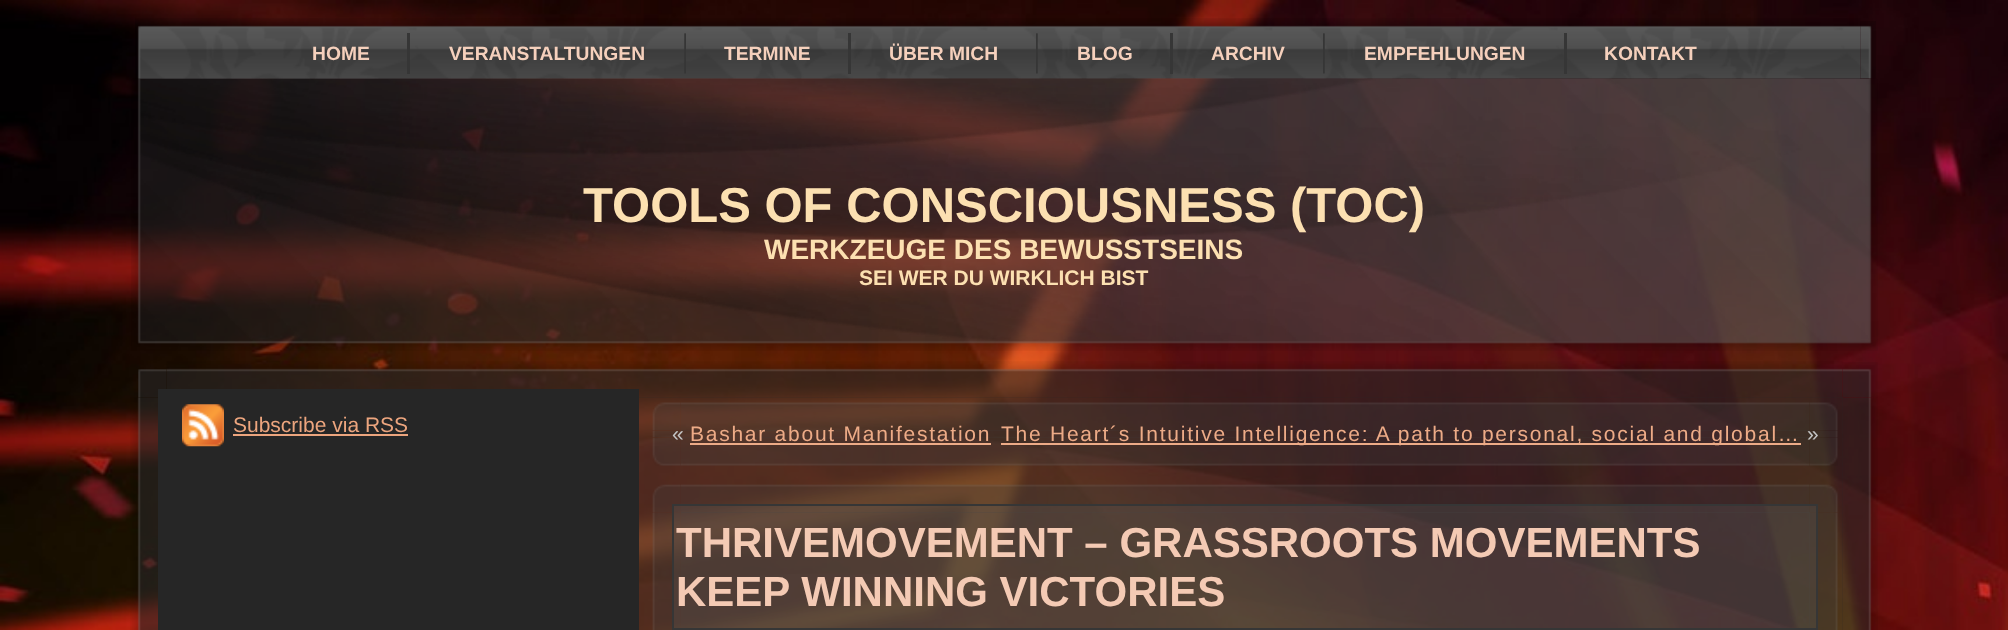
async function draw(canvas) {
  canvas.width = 2008
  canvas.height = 630
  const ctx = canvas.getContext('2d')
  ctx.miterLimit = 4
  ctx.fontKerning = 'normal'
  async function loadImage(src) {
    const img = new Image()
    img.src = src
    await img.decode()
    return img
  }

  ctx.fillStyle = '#fff'
  ctx.fillRect(0, 0, 2008, 630)
  ctx.drawImage(await loadImage('image0.png'), 0, 0, 2008, 630)
  ctx.drawImage(await loadImage('image6.png'), 131, 78, 1747, 273)
  ctx.drawImage(await loadImage('image1.png'), 135, 18, 1726, 61)
  ctx.drawImage(await loadImage('image2.png'), 1860, 21, 16, 58)
  ctx.font = 'bold 19.25px Liberation Sans'
  ctx.fillStyle = '#f5d0bc'
  ctx.fillText('HOME', 312, 60)
  ctx.fillStyle = '#363636'
  ctx.fillRect(407, 33, 3, 41)
  ctx.fillStyle = '#f5d0bc'
  ctx.fillText('VERANSTALTUNGEN', 449, 60)
  ctx.drawImage(await loadImage('image3.png'), 684, 33, 2, 41)
  ctx.fillText('TERMINE', 724, 60)
  ctx.fillStyle = '#363636'
  ctx.fillRect(848, 33, 3, 41)
  ctx.fillStyle = '#f5d0bc'
  ctx.fillText('ÜBER MICH', 889, 60)
  ctx.drawImage(await loadImage('image4.png'), 1036, 33, 2, 41)
  ctx.fillText('BLOG', 1077, 60)
  ctx.fillStyle = '#363636'
  ctx.fillRect(1170, 33, 3, 41)
  ctx.fillStyle = '#f5d0bc'
  ctx.fillText('ARCHIV', 1211, 60)
  ctx.drawImage(await loadImage('image5.png'), 1323, 33, 2, 41)
  ctx.fillText('EMPFEHLUNGEN', 1364, 60)
  ctx.fillStyle = '#363636'
  ctx.fillRect(1564, 33, 3, 41)
  ctx.fillStyle = '#f5d0bc'
  ctx.fillText('KONTAKT', 1604, 60)
  ctx.font = 'bold 49px Liberation Sans'
  ctx.fillStyle = '#fce0b1'
  ctx.fillText('TOOLS OF CONSCIOUSNESS (TOC)', 583, 222)
  ctx.font = 'bold 28px Liberation Sans'
  ctx.fillText('WERKZEUGE DES BEWUSSTSEINS', 764, 259)
  ctx.font = 'bold 21px Liberation Sans'
  ctx.fillText('SEI WER DU WIRKLICH BIST', 859, 285)
  ctx.drawImage(await loadImage('image7.png'), 138, 369, 29, 29)
  ctx.drawImage(await loadImage('image9.png'), 1842, 362, 36, 36)
  ctx.drawImage(await loadImage('image8.png'), 166, 361, 1677, 37)
  ctx.drawImage(await loadImage('image10.png'), 130, 397, 28, 233)
  ctx.drawImage(await loadImage('image11.png'), 1842, 397, 36, 233)
  ctx.fillStyle = '#26262699'
  ctx.fillRect(639, 397, 1204, 233)
  ctx.fillStyle = '#262626'
  ctx.fillRect(158, 389, 481, 241)
  ctx.drawImage(await loadImage('image12.png'), 182, 404, 42, 43)
  ctx.font = '21px Liberation Sans'
  ctx.fillStyle = '#eca57e'
  ctx.fillText('Subscribe via RSS', 233, 432)
  ctx.fillRect(233, 434, 175, 2)
  ctx.drawImage(await loadImage('image13.png'), 652, 402, 29, 29)
  ctx.drawImage(await loadImage('image15.png'), 1809, 402, 29, 29)
  ctx.drawImage(await loadImage('image14.png'), 681, 402, 1129, 29)
  ctx.drawImage(await loadImage('image16.png'), 652, 431, 29, 6)
  ctx.drawImage(await loadImage('image20.png'), 1809, 437, 29, 29)
  ctx.drawImage(await loadImage('image19.png'), 681, 437, 1129, 29)
  ctx.drawImage(await loadImage('image17.png'), 1809, 430, 29, 8)
  ctx.fillStyle = '#4040404d'
  ctx.fillRect(681, 430, 1129, 8)
  ctx.drawImage(await loadImage('image18.png'), 652, 437, 29, 29)
  ctx.fillStyle = '#c4c4c4'
  ctx.fillText('«', 672, 441)
  ctx.letterSpacing = '1.75px'
  ctx.fillStyle = '#edab87'
  ctx.fillText('Bashar about Manifestation', 690, 441)
  ctx.fillRect(690, 443, 301, 2)
  ctx.fillRect(1001, 443, 800, 2)
  ctx.fillText('The Heart´s Intuitive Intelligence: A path to personal, social and global…', 1001, 441)
  ctx.letterSpacing = '0px'
  ctx.fillStyle = '#c4c4c4'
  ctx.fillText('»', 1807, 441)
  ctx.drawImage(await loadImage('image21.png'), 652, 484, 29, 29)
  ctx.drawImage(await loadImage('image23.png'), 1809, 484, 29, 29)
  ctx.drawImage(await loadImage('image22.png'), 681, 484, 1129, 29)
  ctx.drawImage(await loadImage('image24.png'), 652, 513, 29, 117)
  ctx.drawImage(await loadImage('image25.png'), 1809, 513, 29, 117)
  ctx.fillStyle = '#4040404d'
  ctx.fillRect(681, 512, 1129, 116)
  ctx.fillStyle = '#5b5b5b4d'
  ctx.beginPath()
  ctx.rect(673, 505, 1144, 124)
  ctx.fill()
  ctx.strokeStyle = '#363636'
  ctx.lineWidth = 2
  ctx.stroke()
  ctx.font = 'bold 42px Liberation Sans'
  ctx.fillStyle = '#f4cab4'
  ctx.fillText('THRIVEMOVEMENT – GRASSROOTS MOVEMENTS', 676, 557)
  ctx.fillText('KEEP WINNING VICTORIES', 676, 606)
}

draw(document.querySelector('canvas'))
